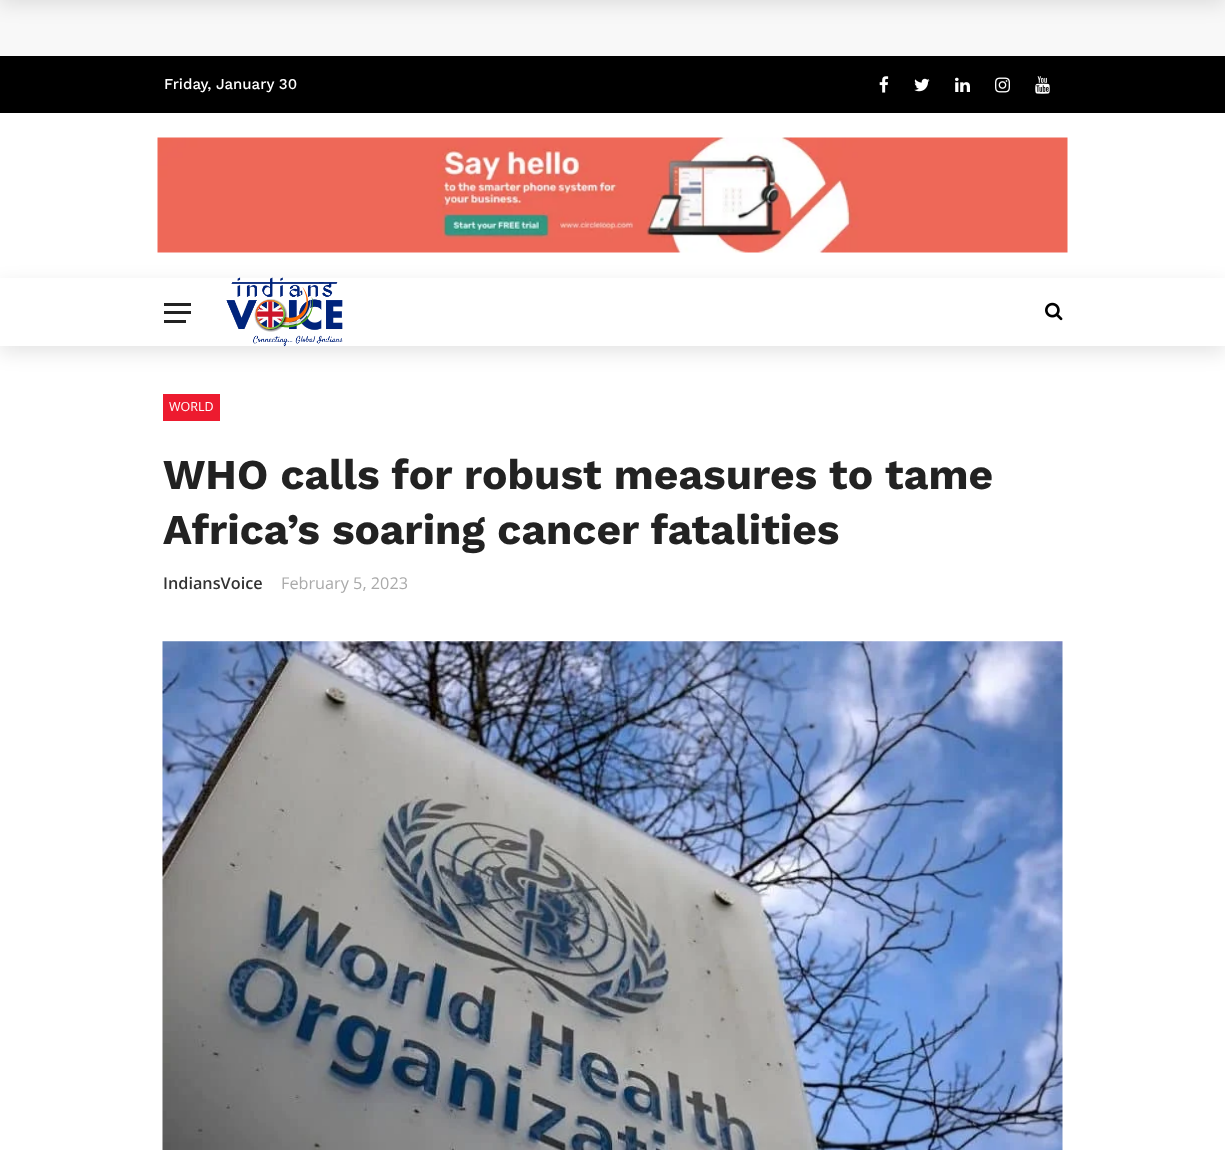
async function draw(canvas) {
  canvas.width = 1225
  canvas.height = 1150
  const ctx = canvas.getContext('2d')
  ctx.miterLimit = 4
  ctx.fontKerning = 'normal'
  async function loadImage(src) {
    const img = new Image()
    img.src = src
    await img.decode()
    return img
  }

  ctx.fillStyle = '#fff'
  ctx.fillRect(0, 0, 1225, 1150)
  ctx.fillStyle = '#f8f8f8'
  ctx.fillRect(0, 0, 1225, 56)
  ctx.fillStyle = '#0000001a'
  ctx.filter = 'blur(9.5px)'
  ctx.beginPath()
  ctx.rect(0, -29, 1225, 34)
  ctx.fill()
  ctx.filter = 'none'
  ctx.fillStyle = '#000'
  ctx.fillRect(0, 56, 1225, 57)
  ctx.font = '500 15px Work Sans'
  ctx.fillStyle = '#fff'
  ctx.fillText('Friday, January 30', 164, 89)
  ctx.drawImage(await loadImage('image0.png'), 879, 76, 10, 17)
  ctx.drawImage(await loadImage('image1.png'), 914, 78, 16, 14)
  ctx.drawImage(await loadImage('image2.png'), 955, 77, 15, 15)
  ctx.drawImage(await loadImage('image3.png'), 995, 77, 15, 16)
  ctx.drawImage(await loadImage('image4.png'), 1035, 76, 15, 18)
  ctx.drawImage(await loadImage('image5.png'), 157, 137, 911, 116)
  ctx.save()
  ctx.beginPath()
  ctx.moveTo(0, 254)
  ctx.lineTo(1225, 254)
  ctx.lineTo(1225, 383)
  ctx.lineTo(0, 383)
  ctx.closePath()
  ctx.moveTo(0, 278)
  ctx.lineTo(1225, 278)
  ctx.lineTo(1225, 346)
  ctx.lineTo(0, 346)
  ctx.closePath()
  ctx.clip('evenodd')
  ctx.fillStyle = '#0000001a'
  ctx.filter = 'blur(9.5px)'
  ctx.beginPath()
  ctx.rect(0, 284, 1225, 69)
  ctx.fill()
  ctx.filter = 'none'
  ctx.restore()
  ctx.fillStyle = '#222'
  ctx.fillRect(164, 303, 27, 3)
  ctx.fillRect(164, 311, 27, 3)
  ctx.fillRect(164, 320, 22, 3)
  ctx.drawImage(await loadImage('image6.png'), 226, 277, 117, 70)
  ctx.drawImage(await loadImage('image7.png'), 1045, 302, 18, 19)
  ctx.fillStyle = '#ed1b2f'
  ctx.fillRect(163, 394, 57, 27)
  ctx.font = '12.5px Open Sans'
  ctx.fillStyle = '#fff'
  ctx.fillText('WORLD', 169, 411)
  ctx.font = 'bold 42.5px Work Sans'
  ctx.fillStyle = '#222'
  ctx.fillText('WHO calls for robust measures to tame', 163, 489)
  ctx.fillText('Africa’s soaring cancer fatalities', 163, 544)
  ctx.font = '600 16.25px Open Sans'
  ctx.fillStyle = '#333'
  ctx.fillText('IndiansVoice', 163, 589)
  ctx.font = '16.25px Open Sans'
  ctx.fillStyle = '#aaa'
  ctx.fillText('February 5, 2023', 281, 589)
  ctx.drawImage(await loadImage('image8.png'), 162, 641, 901, 509)
}

draw(document.querySelector('canvas'))
